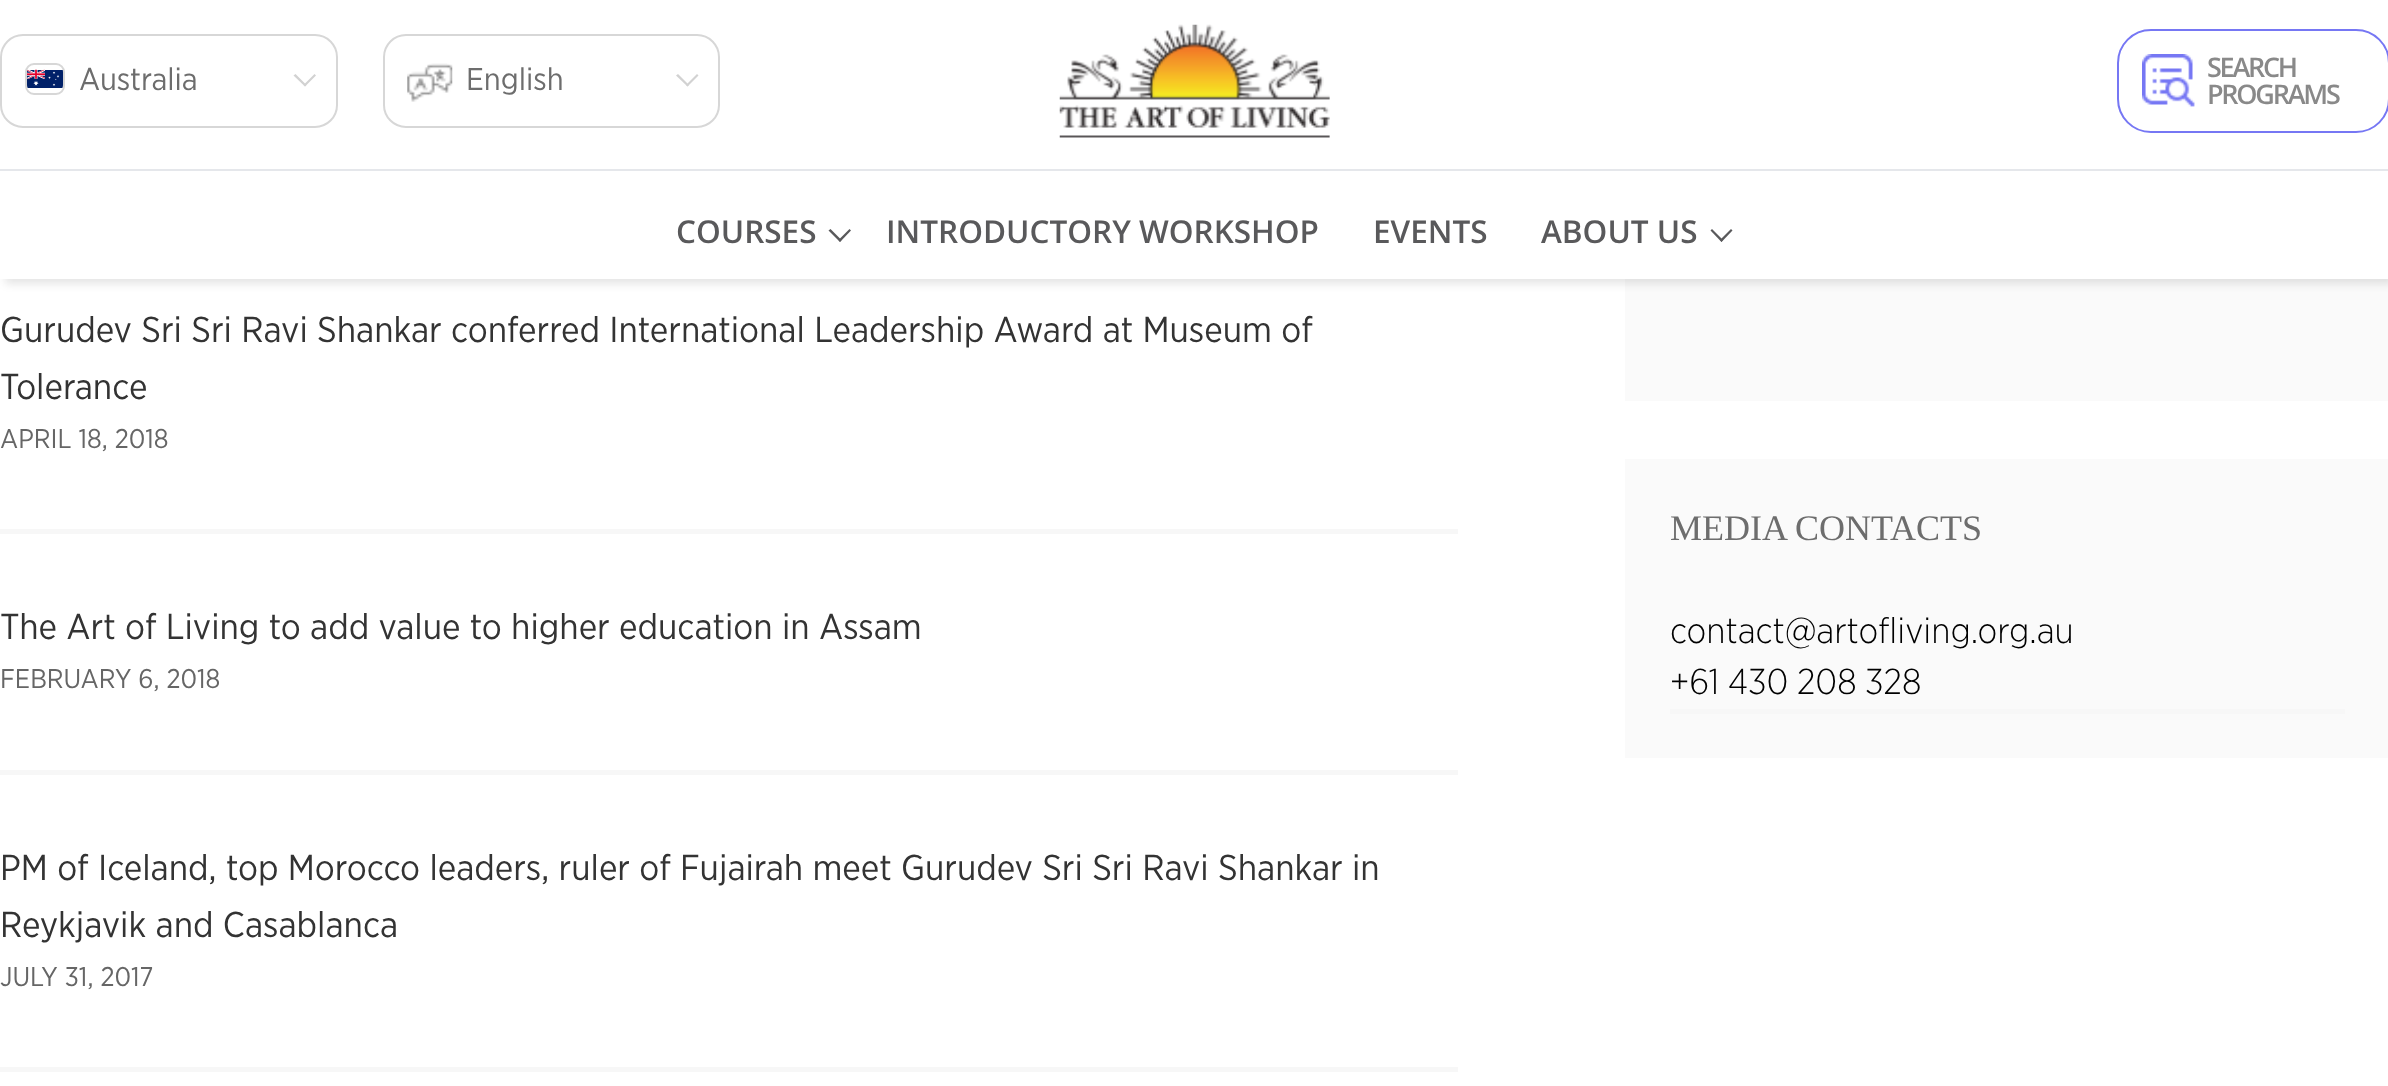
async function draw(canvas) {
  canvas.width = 2388
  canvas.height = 1086
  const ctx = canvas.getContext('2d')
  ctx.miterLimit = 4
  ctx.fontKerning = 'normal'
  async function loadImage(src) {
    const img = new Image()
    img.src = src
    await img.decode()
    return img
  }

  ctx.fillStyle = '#fff'
  ctx.fillRect(0, 0, 2388, 1086)
  ctx.fillStyle = '#fafafa'
  ctx.fillRect(1625, 279, 763, 122)
  ctx.fillStyle = '#0000001a'
  ctx.filter = 'blur(4.5px)'
  ctx.beginPath()
  ctx.rect(5, 5, 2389, 279)
  ctx.fill()
  ctx.filter = 'none'
  ctx.fillStyle = '#fff'
  ctx.fillRect(0, 0, 2388, 279)
  ctx.beginPath()
  ctx.roundRect(1, 35, 336, 92, 22)
  ctx.strokeStyle = '#d7d7d7'
  ctx.lineWidth = 2
  ctx.stroke()
  ctx.beginPath()
  ctx.roundRect(26, 64, 38, 30, 8)
  ctx.stroke()
  ctx.drawImage(await loadImage('image0.png'), 27, 69, 36, 19)
  ctx.font = '31.5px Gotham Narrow'
  ctx.fillStyle = '#6d6d6d'
  ctx.fillText('Australia', 79, 90)
  ctx.fillStyle = '#d2d2d2'
  ctx.beginPath()
  ctx.moveTo(314.5, 74)
  ctx.lineTo(316, 75.5)
  ctx.lineTo(305, 86.5)
  ctx.lineTo(303.5, 85)
  ctx.closePath()
  ctx.fill()
  ctx.beginPath()
  ctx.moveTo(295.5, 74)
  ctx.lineTo(306.5, 85)
  ctx.lineTo(305, 86.5)
  ctx.lineTo(293.5, 75.5)
  ctx.closePath()
  ctx.fill()
  ctx.beginPath()
  ctx.roundRect(384, 35, 335, 92, 22)
  ctx.stroke()
  ctx.drawImage(await loadImage('image1.png'), 407, 63, 46, 39)
  ctx.fillStyle = '#6d6d6d'
  ctx.fillText('English', 466, 90)
  ctx.fillStyle = '#d2d2d2'
  ctx.beginPath()
  ctx.moveTo(697, 74)
  ctx.lineTo(698.5, 75.5)
  ctx.lineTo(687.5, 86.5)
  ctx.lineTo(686, 85)
  ctx.closePath()
  ctx.fill()
  ctx.beginPath()
  ctx.moveTo(678, 74)
  ctx.lineTo(689, 85)
  ctx.lineTo(687.5, 86.5)
  ctx.lineTo(676, 75.5)
  ctx.closePath()
  ctx.fill()
  ctx.drawImage(await loadImage('image2.png'), 1059, 24, 271, 114)
  ctx.beginPath()
  ctx.roundRect(2118, 30, 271, 102, 33)
  ctx.strokeStyle = '#7677f4'
  ctx.stroke()
  ctx.drawImage(await loadImage('image3.png'), 2142, 54, 53, 53)
  ctx.letterSpacing = '-2.25px'
  ctx.font = '600 27px Open Sans'
  ctx.fillStyle = '#898989'
  ctx.fillText('SEARCH', 2207, 77)
  ctx.fillText('PROGRAMS', 2207, 104)
  ctx.letterSpacing = '0px'
  ctx.font = '600 31.5px Open Sans'
  ctx.fillStyle = '#59595b'
  ctx.fillText('COURSES', 676, 243)
  ctx.beginPath()
  ctx.moveTo(849.5, 229)
  ctx.lineTo(851, 230.5)
  ctx.lineTo(840, 242)
  ctx.lineTo(838.5, 240)
  ctx.closePath()
  ctx.fill()
  ctx.beginPath()
  ctx.moveTo(830.5, 229)
  ctx.lineTo(841.5, 240)
  ctx.lineTo(840, 242)
  ctx.lineTo(828.5, 230.5)
  ctx.closePath()
  ctx.fill()
  ctx.fillText('INTRODUCTORY WORKSHOP', 886, 243)
  ctx.fillText('EVENTS', 1373, 243)
  ctx.fillText('ABOUT US', 1541, 243)
  ctx.beginPath()
  ctx.moveTo(1731, 229)
  ctx.lineTo(1732.5, 230.5)
  ctx.lineTo(1721.5, 242)
  ctx.lineTo(1720, 240)
  ctx.closePath()
  ctx.fill()
  ctx.beginPath()
  ctx.moveTo(1712, 229)
  ctx.lineTo(1723, 240)
  ctx.lineTo(1721.5, 242)
  ctx.lineTo(1710.5, 230.5)
  ctx.closePath()
  ctx.fill()
  ctx.fillStyle = '#e5e7eb'
  ctx.fillRect(0, 169, 2388, 2)
  ctx.fillStyle = '#f7f7f7'
  ctx.fillRect(0, 529, 1458, 5)
  ctx.font = '36px Gotham Narrow'
  ctx.fillStyle = '#333'
  ctx.fillText('Gurudev Sri Sri Ravi Shankar conferred International Leadership Award at Museum of', 0, 342)
  ctx.fillText('Tolerance', 0, 399)
  ctx.font = '27px Gotham Narrow'
  ctx.fillStyle = '#666'
  ctx.fillText('APRIL 18, 2018', 0, 448)
  ctx.fillStyle = '#f7f7f7'
  ctx.fillRect(0, 770, 1458, 5)
  ctx.font = '36px Gotham Narrow'
  ctx.fillStyle = '#333'
  ctx.fillText('The Art of Living to add value to higher education in Assam', 0, 639)
  ctx.font = '27px Gotham Narrow'
  ctx.fillStyle = '#666'
  ctx.fillText('FEBRUARY 6, 2018', 0, 688)
  ctx.fillStyle = '#f7f7f7'
  ctx.fillRect(0, 1067, 1458, 5)
  ctx.font = '36px Gotham Narrow'
  ctx.fillStyle = '#333'
  ctx.fillText('PM of Iceland, top Morocco leaders, ruler of Fujairah meet Gurudev Sri Sri Ravi Shankar in', 0, 880)
  ctx.fillText('Reykjavik and Casablanca', 0, 937)
  ctx.font = '27px Gotham Narrow'
  ctx.fillStyle = '#666'
  ctx.fillText('JULY 31, 2017', 0, 986)
  ctx.fillStyle = '#fafafa'
  ctx.fillRect(1625, 459, 763, 299)
  ctx.font = '36px Liberation Serif'
  ctx.fillStyle = '#6d6d6d'
  ctx.fillText('MEDIA CONTACTS', 1670, 540)
  ctx.fillStyle = '#f7f7f7'
  ctx.fillRect(1670, 709, 675, 5)
  ctx.font = '300 36px Gotham Narrow'
  ctx.fillStyle = '#000'
  ctx.fillText('contact@artofliving.org.au', 1670, 643)
  ctx.fillText('+61 430 208 328', 1670, 694)
}

draw(document.querySelector('canvas'))
